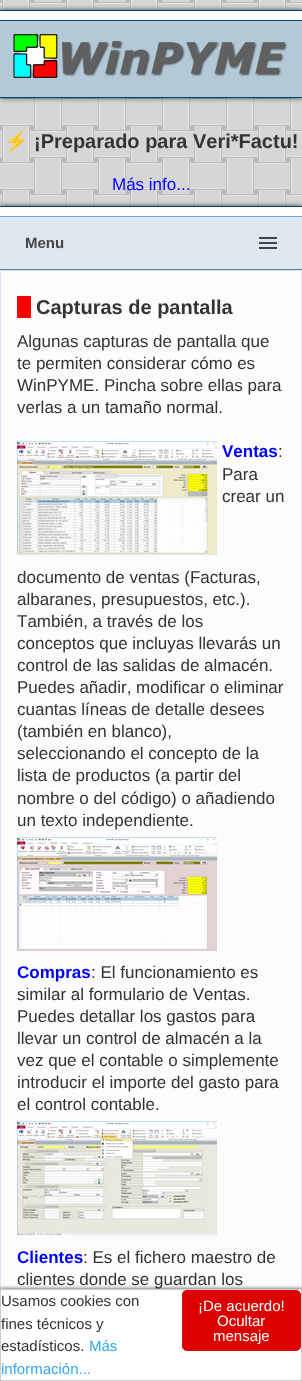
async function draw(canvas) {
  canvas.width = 302
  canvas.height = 1381
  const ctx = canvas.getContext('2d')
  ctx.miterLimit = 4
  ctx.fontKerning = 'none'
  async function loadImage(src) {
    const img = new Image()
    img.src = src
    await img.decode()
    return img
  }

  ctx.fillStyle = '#bdbdbd'
  ctx.fillRect(0, 0, 302, 1381)
  ctx.drawImage(await loadImage('image0.png'), 0, 0, 302, 206)
  ctx.fillStyle = '#000000bf'
  ctx.filter = 'blur(2.5px)'
  ctx.beginPath()
  ctx.rect(0, 10, 302, 88)
  ctx.fill()
  ctx.filter = 'none'
  ctx.fillStyle = '#fff'
  ctx.fillRect(0, 11, 302, 9)
  ctx.fillStyle = '#024978'
  ctx.fillRect(0, 10, 302, 1)
  ctx.fillStyle = '#b4c9d7'
  ctx.fillRect(0, 21, 302, 76)
  ctx.fillStyle = '#024978'
  ctx.fillRect(0, 20, 302, 1)
  ctx.fillRect(0, 97, 302, 1)
  ctx.drawImage(await loadImage('image1.png'), 13, 34, 275, 44)
  ctx.font = '20px Noto Color Emoji'
  ctx.fillStyle = '#333'
  ctx.fillText('⚡', 4, 148)
  ctx.font = 'bold 20px Liberation Sans'
  ctx.fillText('¡Preparado para Veri*Factu!', 34, 148)
  ctx.font = '17px Liberation Sans'
  ctx.fillStyle = '#00f'
  ctx.fillText('Más info...', 112, 190)
  ctx.fillStyle = '#000000bf'
  ctx.filter = 'blur(2.5px)'
  ctx.beginPath()
  ctx.rect(0, 206, 302, 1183)
  ctx.fill()
  ctx.filter = 'none'
  ctx.fillStyle = '#fff'
  ctx.fillRect(0, 207, 302, 9)
  ctx.fillStyle = '#024978'
  ctx.fillRect(0, 206, 302, 1)
  ctx.fillStyle = '#dee8ef'
  ctx.fillRect(0, 217, 302, 52)
  ctx.fillStyle = '#83a2b6'
  ctx.fillRect(0, 216, 302, 1)
  ctx.fillStyle = '#557b95'
  ctx.fillRect(0, 269, 302, 1)
  ctx.font = 'bold 15px Liberation Sans'
  ctx.fillStyle = '#444'
  ctx.fillText('Menu', 25, 248)
  ctx.fillRect(259, 237, 18, 2)
  ctx.fillRect(259, 242, 18, 2)
  ctx.fillRect(259, 247, 18, 2)
  ctx.fillStyle = '#e2e3f2'
  ctx.fillRect(0, 270, 302, 1019)
  ctx.fillStyle = '#fcfcfc'
  ctx.fillRect(1, 271, 300, 1018)
  ctx.fillStyle = '#f00'
  ctx.fillRect(17, 296, 14, 22)
  ctx.font = 'bold 20px Liberation Sans'
  ctx.fillStyle = '#333'
  ctx.fillText('Capturas de pantalla', 36, 314)
  ctx.font = '17px Liberation Sans'
  ctx.fillText('Algunas capturas de pantalla que', 17, 347)
  ctx.fillText('te permiten considerar cómo es', 17, 369)
  ctx.fillText('WinPYME. Pincha sobre ellas para', 17, 391)
  ctx.fillText('verlas a un tamaño normal.', 17, 413)
  ctx.drawImage(await loadImage('image2.png'), 17, 441, 200, 114)
  ctx.font = 'bold 17px Liberation Sans'
  ctx.fillStyle = '#00f'
  ctx.fillText('Ventas', 222, 457)
  ctx.font = '17px Liberation Sans'
  ctx.fillStyle = '#333'
  ctx.fillText(':', 278, 457)
  ctx.fillText('Para', 222, 480)
  ctx.fillText('crear un', 222, 502)
  ctx.fillText('documento de ventas (Facturas,', 17, 583)
  ctx.fillText('albaranes, presupuestos, etc.).', 17, 605)
  ctx.fillText('También, a través de los', 17, 627)
  ctx.fillText('conceptos que incluyas llevarás un', 17, 649)
  ctx.fillText('control de las salidas de almacén.', 17, 671)
  ctx.fillText('Puedes añadir, modificar o eliminar', 17, 693)
  ctx.fillText('cuantas líneas de detalle desees', 17, 715)
  ctx.fillText('(también en blanco),', 17, 737)
  ctx.fillText('seleccionando el concepto de la', 17, 759)
  ctx.fillText('lista de productos (a partir del', 17, 781)
  ctx.fillText('nombre o del código) o añadiendo', 17, 804)
  ctx.fillText('un texto independiente.', 17, 826)
  ctx.drawImage(await loadImage('image3.png'), 17, 837, 200, 114)
  ctx.font = 'bold 17px Liberation Sans'
  ctx.fillStyle = '#00f'
  ctx.fillText('Compras', 17, 978)
  ctx.font = '17px Liberation Sans'
  ctx.fillStyle = '#333'
  ctx.fillText(': El funcionamiento es', 91, 978)
  ctx.fillText('similar al formulario de Ventas.', 17, 1000)
  ctx.fillText('Puedes detallar los gastos para', 17, 1022)
  ctx.fillText('llevar un control de almacén a la', 17, 1044)
  ctx.fillText('vez que el contable o simplemente', 17, 1066)
  ctx.fillText('introducir el importe del gasto para', 17, 1088)
  ctx.fillText('el control contable.', 17, 1110)
  ctx.drawImage(await loadImage('image4.png'), 17, 1121, 200, 114)
  ctx.font = 'bold 17px Liberation Sans'
  ctx.fillStyle = '#00f'
  ctx.fillText('Clientes', 17, 1263)
  ctx.font = '17px Liberation Sans'
  ctx.fillStyle = '#333'
  ctx.fillText(': Es el fichero maestro de', 83, 1263)
  ctx.fillText('clientes donde se guardan los', 17, 1285)
  ctx.fillStyle = '#000000bf'
  ctx.filter = 'blur(2px)'
  ctx.beginPath()
  ctx.rect(0, 1289, 302, 92)
  ctx.fill()
  ctx.filter = 'none'
  ctx.fillStyle = '#fff'
  ctx.beginPath()
  ctx.rect(0.5, 1289.5, 301, 91)
  ctx.fill()
  ctx.strokeStyle = '#ccc'
  ctx.stroke()
  ctx.font = '15px Liberation Sans'
  ctx.fillStyle = '#333'
  ctx.fillText('Usamos cookies con', 1, 1306)
  ctx.fillText('fines técnicos y', 1, 1329)
  ctx.fillText('estadísticos.', 1, 1351)
  ctx.fillStyle = '#31a8f0'
  ctx.fillText('Más', 89, 1351)
  ctx.fillText('información...', 1, 1374)
  ctx.fillStyle = '#d00'
  ctx.beginPath()
  ctx.roundRect(182, 1290, 119, 61, 5)
  ctx.fill()
  ctx.fillStyle = '#fff'
  ctx.fillText('¡De acuerdo!', 198, 1311)
  ctx.fillText('Ocultar', 217, 1326)
  ctx.fillText('mensaje', 213, 1341)
}

draw(document.querySelector('canvas'))
